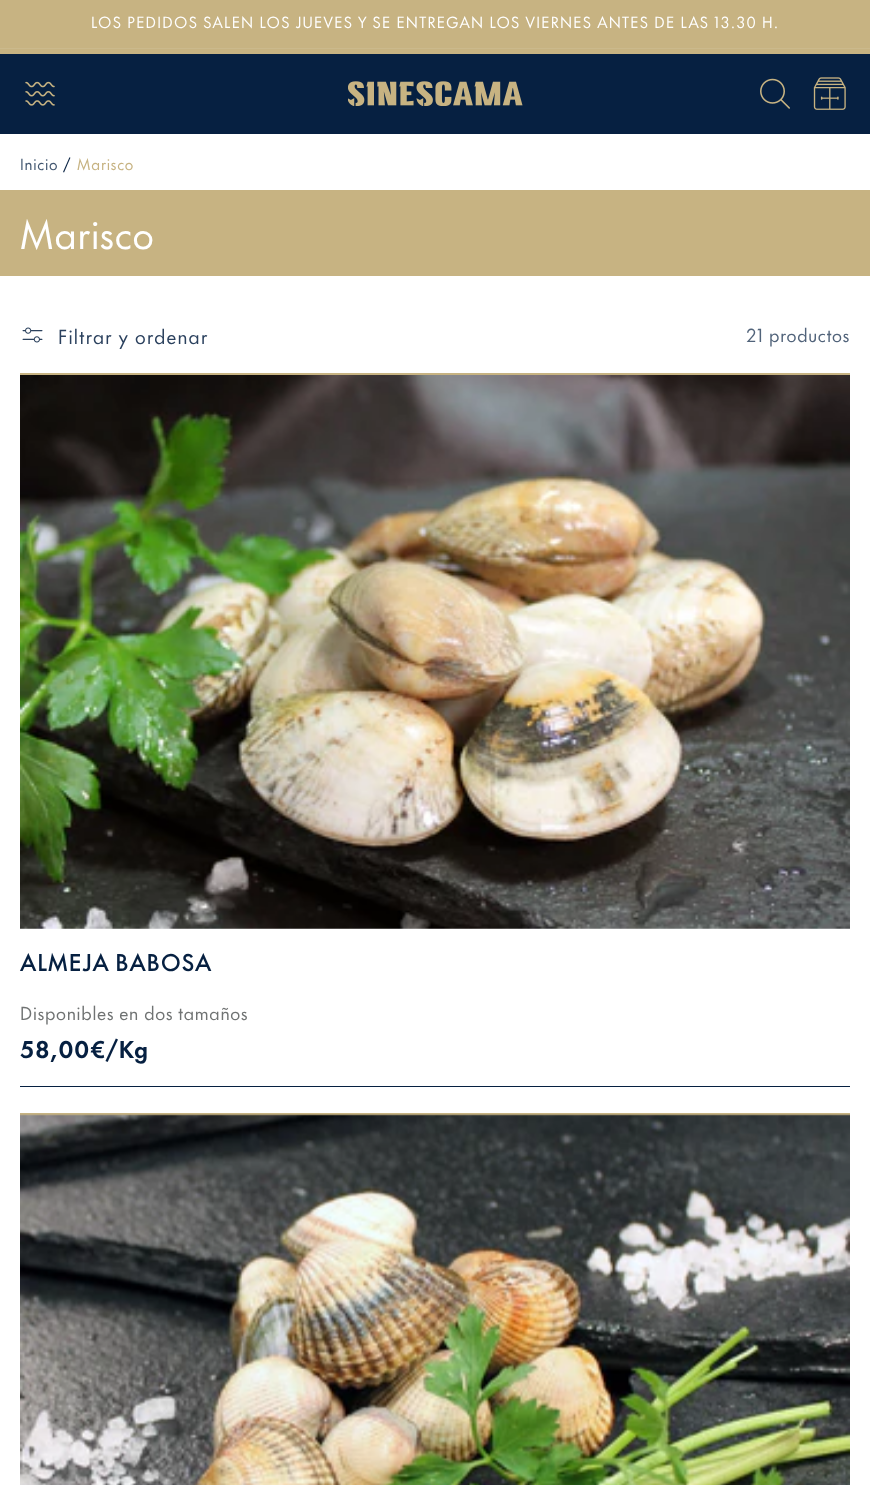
async function draw(canvas) {
  canvas.width = 870
  canvas.height = 1485
  const ctx = canvas.getContext('2d')
  ctx.miterLimit = 4
  ctx.fontKerning = 'normal'
  async function loadImage(src) {
    const img = new Image()
    img.src = src
    await img.decode()
    return img
  }

  ctx.fillStyle = '#fff'
  ctx.fillRect(0, 0, 870, 1485)
  ctx.fillStyle = '#c7b382'
  ctx.fillRect(0, 0, 870, 48)
  ctx.fillStyle = '#cbb98c'
  ctx.fillRect(0, 48, 870, 1)
  ctx.letterSpacing = '1.25px'
  ctx.font = '15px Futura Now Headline'
  ctx.fillStyle = '#fff'
  ctx.fillText('LOS PEDIDOS SALEN LOS JUEVES Y SE ENTREGAN LOS VIERNES ANTES DE LAS 13.30 H.', 91, 28)
  ctx.fillStyle = '#c7b382'
  ctx.fillRect(0, 49, 870, 5)
  ctx.fillStyle = '#062041'
  ctx.fillRect(0, 54, 870, 80)
  ctx.drawImage(await loadImage('image0.png'), 25, 81, 30, 25)
  ctx.drawImage(await loadImage('image1.png'), 348, 81, 175, 25)
  ctx.drawImage(await loadImage('image2.png'), 760, 78, 30, 31)
  ctx.drawImage(await loadImage('image3.png'), 813, 77, 33, 33)
  ctx.letterSpacing = '0.75px'
  ctx.fillStyle = '#445871'
  ctx.fillText('Inicio', 20, 170)
  ctx.fillStyle = '#062041'
  ctx.fillText('/', 63, 170)
  ctx.fillStyle = '#c7b382'
  ctx.fillText('Marisco', 77, 170)
  ctx.fillRect(0, 190, 870, 86)
  ctx.font = '37.5px Futura Now Headline'
  ctx.fillStyle = '#fff'
  ctx.fillText('Marisco', 20, 249)
  ctx.drawImage(await loadImage('image4.png'), 22, 327, 21, 16)
  ctx.letterSpacing = '1.25px'
  ctx.font = '18.75px Futura Now Headline'
  ctx.fillStyle = '#2b415e'
  ctx.fillText('Filtrar y ordenar', 58, 344)
  ctx.letterSpacing = '0.75px'
  ctx.font = '17.5px Futura Now Headline'
  ctx.fillStyle = '#51637a'
  ctx.fillText('21 productos', 746, 342)
  ctx.fillStyle = '#c7b382'
  ctx.fillRect(20, 373, 830, 2)
  ctx.fillStyle = '#062041'
  ctx.fillRect(20, 1086, 830, 1)
  ctx.drawImage(await loadImage('image5.png'), 20, 375, 830, 554)
  ctx.letterSpacing = '0.9px'
  ctx.font = '500 22.5px Futura Now Headline'
  ctx.fillText('ALMEJA BABOSA', 20, 971)
  ctx.letterSpacing = '0.75px'
  ctx.font = '17.5px Futura Now Headline'
  ctx.fillStyle = '#707373'
  ctx.fillText('Disponibles en dos tamaños', 20, 1020)
  ctx.font = 'bold 22.5px Futura Now Headline'
  ctx.fillStyle = '#062041'
  ctx.fillText('58,00€/Kg', 20, 1058)
  ctx.fillStyle = '#c7b382'
  ctx.fillRect(20, 1113, 830, 3)
  ctx.drawImage(await loadImage('image6.png'), 20, 1114, 830, 371)
}

draw(document.querySelector('canvas'))
